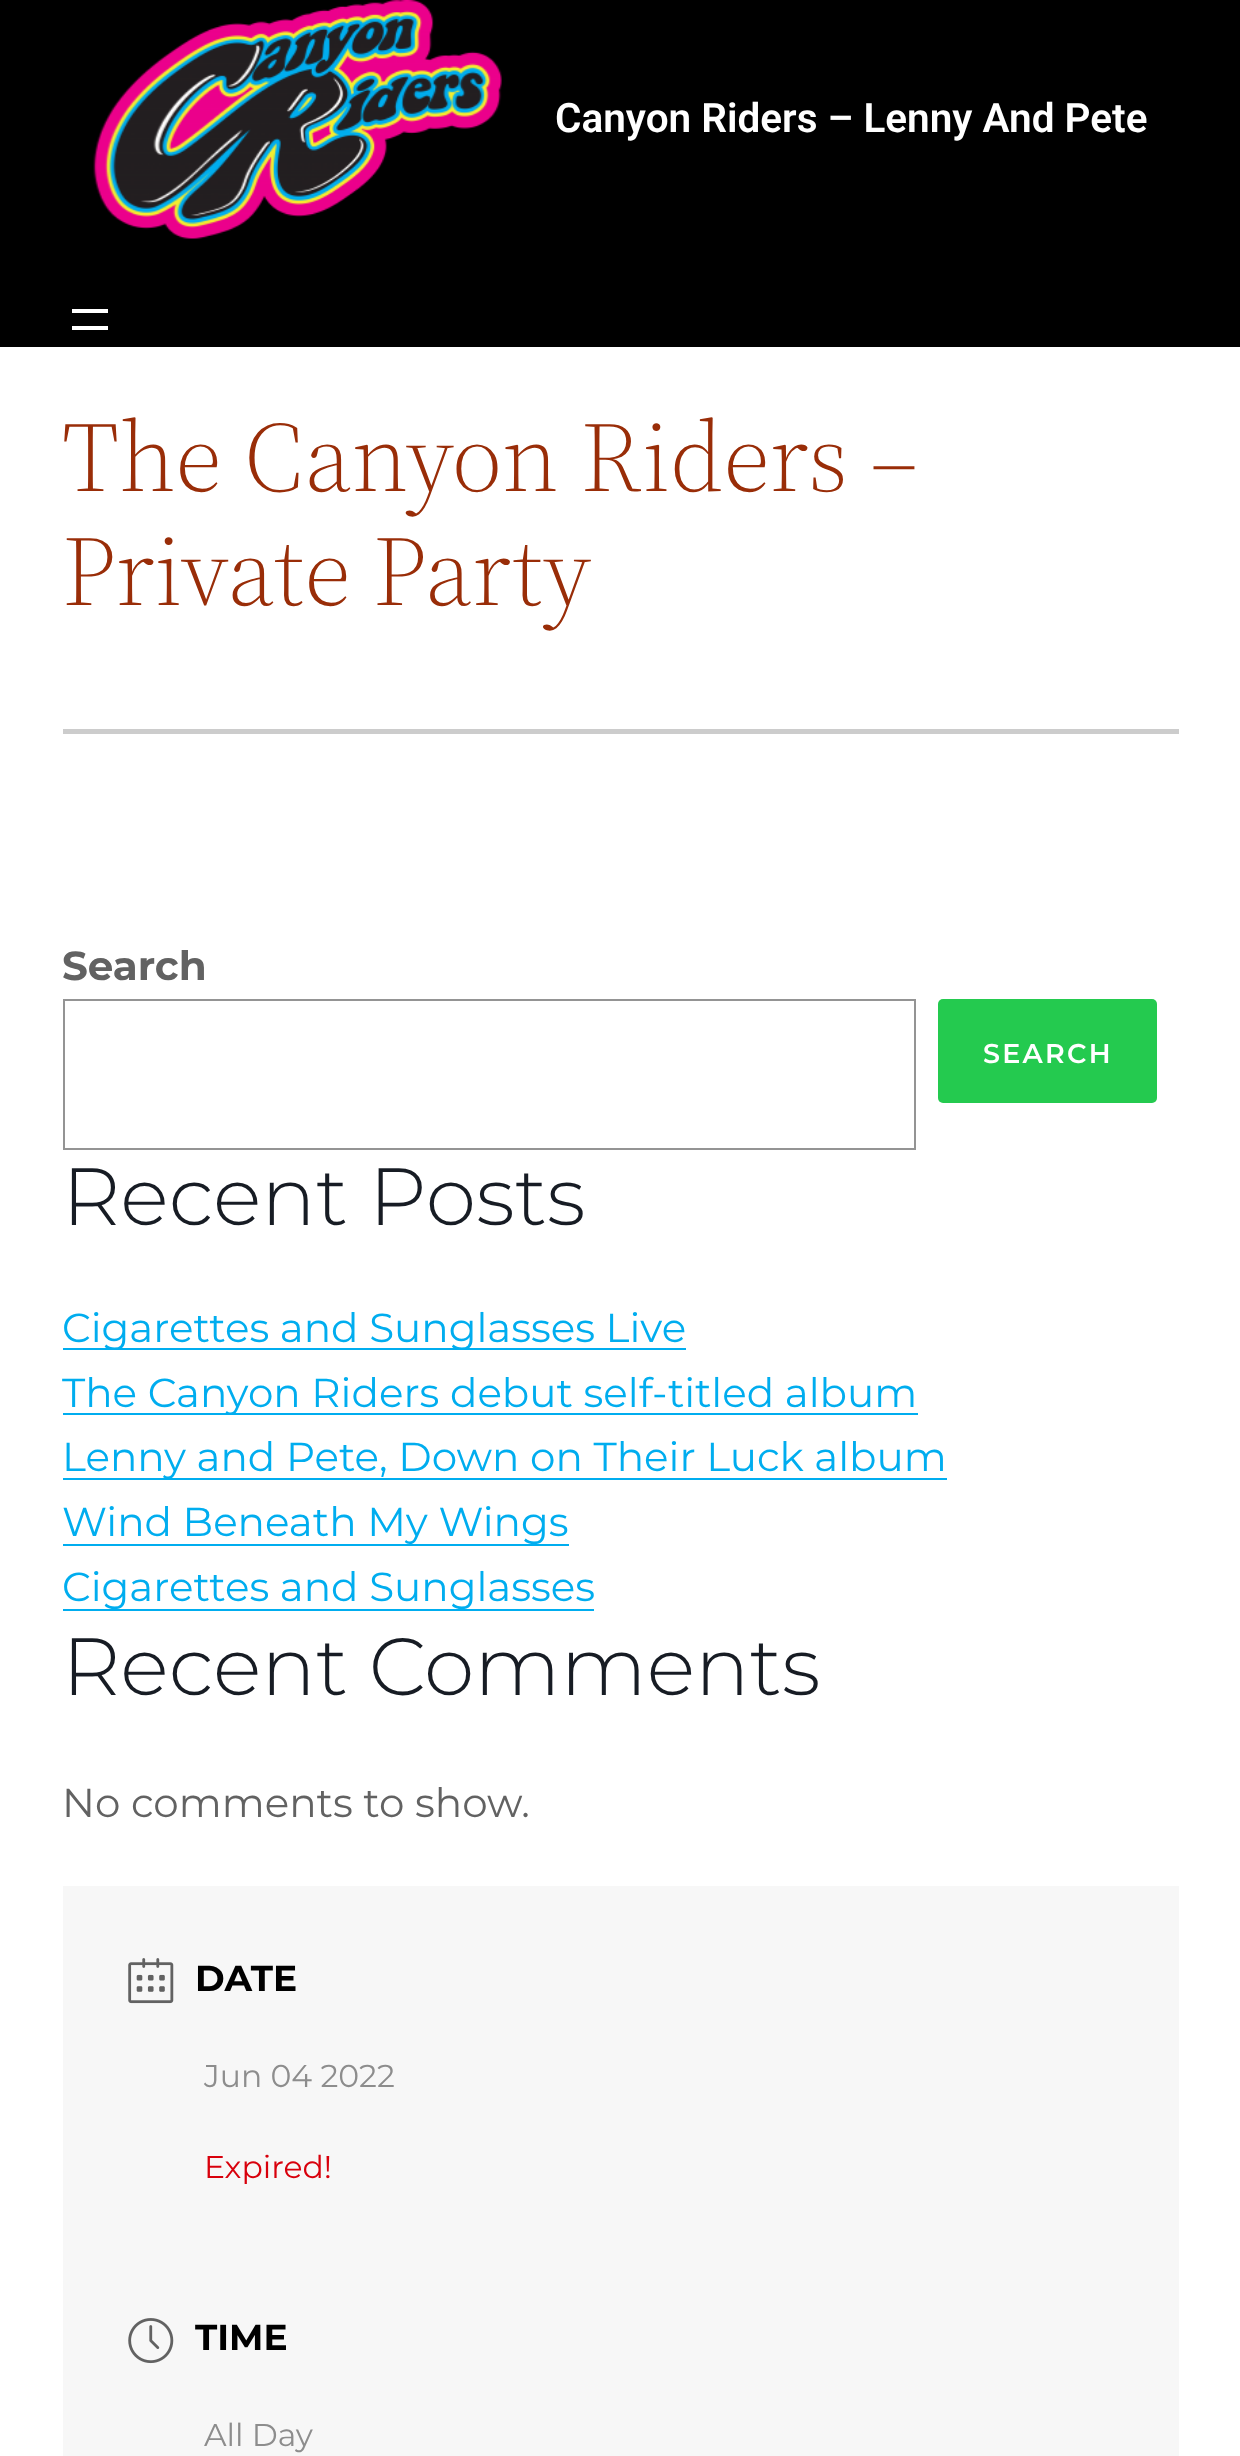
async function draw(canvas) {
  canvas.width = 1240
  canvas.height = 2456
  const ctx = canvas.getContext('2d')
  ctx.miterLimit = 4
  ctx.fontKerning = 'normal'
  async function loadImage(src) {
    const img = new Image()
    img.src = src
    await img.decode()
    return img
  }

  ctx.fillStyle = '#fff'
  ctx.fillRect(0, 0, 1240, 2456)
  ctx.fillStyle = '#000'
  ctx.fillRect(0, 0, 1240, 347)
  ctx.drawImage(await loadImage('image0.png'), 93, 0, 409, 239)
  ctx.font = '600 40.5px Roboto'
  ctx.fillStyle = '#fff'
  ctx.fillText('Canyon Riders – Lenny And Pete', 555, 132)
  ctx.fillRect(72, 309, 36, 4)
  ctx.fillRect(72, 326, 36, 4)
  ctx.font = '300 99px "Source Serif 4"'
  ctx.fillStyle = '#992d08'
  ctx.fillText('The Canyon Riders –', 62, 491)
  ctx.fillText('Private Party', 62, 605)
  ctx.fillStyle = '#ccc'
  ctx.fillRect(63, 729, 1116, 5)
  ctx.font = 'bold 40.5px Montserrat'
  ctx.fillStyle = '#626262'
  ctx.fillText('Search', 62, 980)
  ctx.strokeStyle = '#949494'
  ctx.lineWidth = 2
  ctx.strokeRect(64, 1000, 851, 149)
  ctx.fillStyle = '#24ca4f'
  ctx.beginPath()
  ctx.roundRect(938, 999, 219, 104, 5)
  ctx.fill()
  ctx.letterSpacing = '2.25px'
  ctx.font = '600 27px Montserrat'
  ctx.fillStyle = '#fff'
  ctx.fillText('SEARCH', 983, 1063)
  ctx.letterSpacing = '0px'
  ctx.font = '300 81px Montserrat'
  ctx.fillStyle = '#171c24'
  ctx.fillText('Recent Posts', 62, 1225)
  ctx.fillStyle = '#00adef'
  ctx.fillRect(63, 1348, 623, 2)
  ctx.font = '40.5px Montserrat'
  ctx.fillText('Cigarettes and Sunglasses Live', 62, 1342)
  ctx.fillRect(63, 1413, 855, 2)
  ctx.fillText('The Canyon Riders debut self-titled album', 62, 1407)
  ctx.fillRect(63, 1478, 884, 2)
  ctx.fillText('Lenny and Pete, Down on Their Luck album', 62, 1471)
  ctx.fillRect(63, 1544, 506, 2)
  ctx.fillText('Wind Beneath My Wings', 62, 1536)
  ctx.fillRect(63, 1609, 531, 2)
  ctx.fillText('Cigarettes and Sunglasses', 62, 1601)
  ctx.font = '300 81px Montserrat'
  ctx.fillStyle = '#171c24'
  ctx.fillText('Recent Comments', 62, 1695)
  ctx.font = '40.5px Montserrat'
  ctx.fillStyle = '#626262'
  ctx.fillText('No comments to show.', 62, 1817)
  ctx.fillStyle = '#f7f7f7'
  ctx.fillRect(63, 1886, 1116, 570)
  ctx.drawImage(await loadImage('image1.png'), 128, 1958, 46, 46)
  ctx.font = 'bold 36px Montserrat'
  ctx.fillStyle = '#000'
  ctx.fillText('DATE', 195, 1991)
  ctx.font = '31.5px Montserrat'
  ctx.fillStyle = '#8d8d8d'
  ctx.fillText('Jun 04 2022', 204, 2087)
  ctx.fillStyle = '#d8000c'
  ctx.fillText('Expired!', 204, 2178)
  ctx.drawImage(await loadImage('image2.png'), 128, 2318, 46, 46)
  ctx.font = 'bold 36px Montserrat'
  ctx.fillStyle = '#000'
  ctx.fillText('TIME', 195, 2350)
  ctx.font = '31.5px Montserrat'
  ctx.fillStyle = '#8d8d8d'
  ctx.fillText('All Day', 204, 2446)
}

draw(document.querySelector('canvas'))
